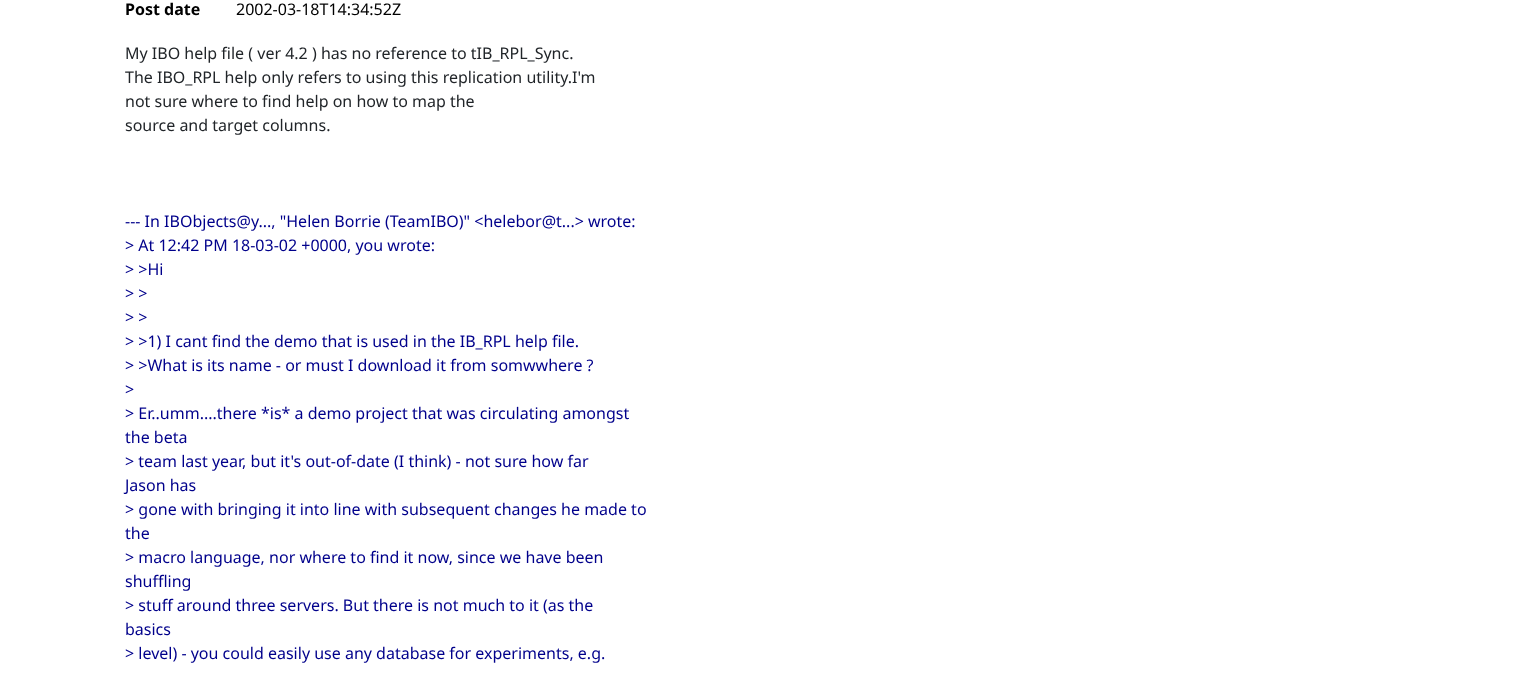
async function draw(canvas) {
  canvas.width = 1530
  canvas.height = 676
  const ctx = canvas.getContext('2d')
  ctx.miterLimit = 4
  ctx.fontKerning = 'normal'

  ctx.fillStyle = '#fff'
  ctx.fillRect(0, 0, 1530, 676)
  ctx.font = 'bold 16px Noto Sans'
  ctx.fillStyle = '#000'
  ctx.fillText('Post date', 125, 15)
  ctx.font = '16px Noto Sans'
  ctx.fillText('2002-03-18T14:34:52Z', 236, 15)
  ctx.fillStyle = '#212529'
  ctx.fillText('My IBO help file ( ver 4.2 ) has no reference to tIB_RPL_Sync.', 125, 59)
  ctx.fillText('The IBO_RPL help only refers to using this replication utility.I\'m', 125, 83)
  ctx.fillText('not sure where to find help on how to map the', 125, 107)
  ctx.fillText('source and target columns.', 125, 131)
  ctx.fillStyle = '#00008b'
  ctx.fillText('--- In IBObjects@y..., "Helen Borrie (TeamIBO)" <helebor@t...> wrote:', 125, 227)
  ctx.fillText('> At 12:42 PM 18-03-02 +0000, you wrote:', 125, 251)
  ctx.fillText('> >Hi', 125, 275)
  ctx.fillText('> >', 125, 299)
  ctx.fillText('> >', 125, 323)
  ctx.fillText('> >1) I cant find the demo that is used in the IB_RPL help file.', 125, 347)
  ctx.fillText('> >What is its name - or must I download it from somwwhere ?', 125, 371)
  ctx.fillText('>', 125, 395)
  ctx.fillText('> Er..umm....there *is* a demo project that was circulating amongst', 125, 419)
  ctx.fillText('the beta', 125, 443)
  ctx.fillText('> team last year, but it\'s out-of-date (I think) - not sure how far', 125, 467)
  ctx.fillText('Jason has', 125, 491)
  ctx.fillText('> gone with bringing it into line with subsequent changes he made to', 125, 515)
  ctx.fillText('the', 125, 539)
  ctx.fillText('> macro language, nor where to find it now, since we have been', 125, 563)
  ctx.fillText('shuffling', 125, 587)
  ctx.fillText('> stuff around three servers. But there is not much to it (as the', 125, 611)
  ctx.fillText('basics', 125, 635)
  ctx.fillText('> level) - you could easily use any database for experiments, e.g.', 125, 659)
}

draw(document.querySelector('canvas'))
